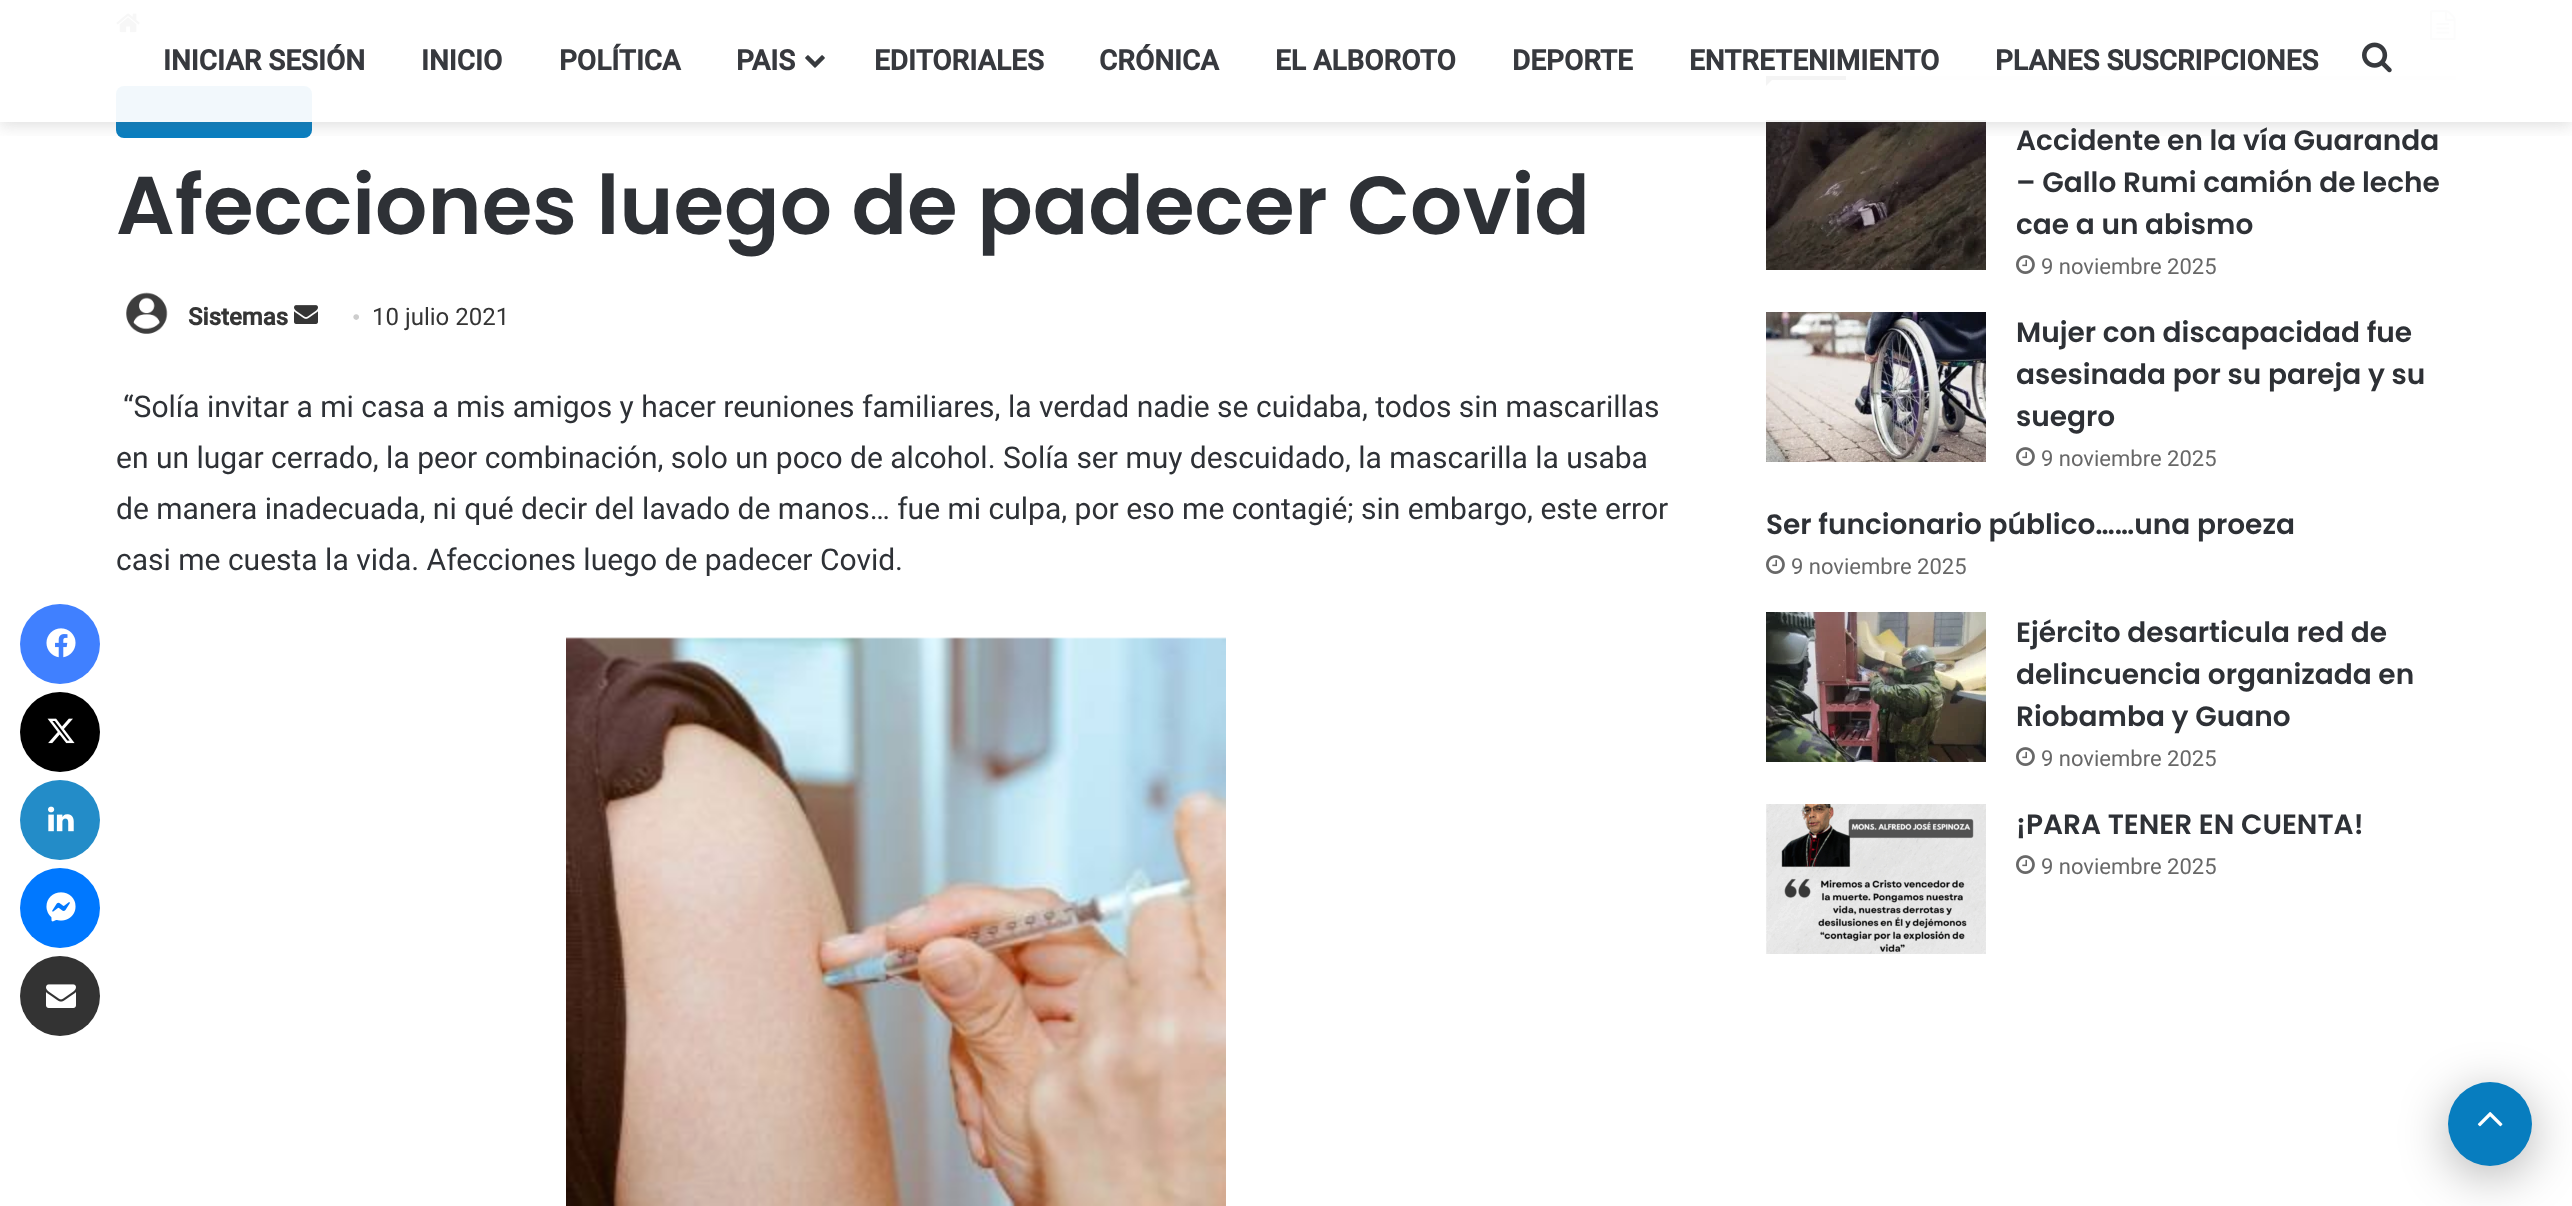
async function draw(canvas) {
  canvas.width = 2572
  canvas.height = 1206
  const ctx = canvas.getContext('2d')
  ctx.miterLimit = 4
  ctx.fontKerning = 'normal'
  async function loadImage(src) {
    const img = new Image()
    img.src = src
    await img.decode()
    return img
  }

  ctx.fillStyle = '#fff'
  ctx.fillRect(0, 0, 2572, 1206)
  ctx.drawImage(await loadImage('image7.png'), 116, 13, 24, 20)
  ctx.fillStyle = '#097ec0'
  ctx.beginPath()
  ctx.roundRect(116, 86, 196, 52, 8)
  ctx.fill()
  ctx.fillStyle = '#e6e6e6'
  ctx.fillRect(1846, 76, 610, 4)
  ctx.drawImage(await loadImage('image11.png'), 2430, 10, 26, 31)
  ctx.fillStyle = '#2e3136'
  ctx.beginPath()
  ctx.moveTo(1766, 76)
  ctx.lineTo(1776, 76)
  ctx.lineTo(1766, 86)
  ctx.closePath()
  ctx.fill()
  ctx.fillRect(1766, 76, 80, 4)
  ctx.drawImage(await loadImage('image12.png'), 1766, 120, 220, 150)
  ctx.save()
  ctx.beginPath()
  ctx.rect(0, 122, 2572, 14)
  ctx.clip()
  ctx.fillStyle = '#63636333'
  ctx.filter = 'blur(8px)'
  ctx.beginPath()
  ctx.rect(0, 4, 2572, 122)
  ctx.fill()
  ctx.filter = 'none'
  ctx.restore()
  ctx.fillStyle = '#fffffff2'
  ctx.fillRect(116, 10, 2340, 112)
  ctx.font = 'bold 28px Roboto'
  ctx.fillStyle = '#37393e'
  ctx.fillText('INICIAR SESIÓN', 163, 70)
  ctx.fillText('INICIO', 421, 70)
  ctx.fillText('POLÍTICA', 559, 70)
  ctx.fillText('PAIS', 736, 70)
  ctx.drawImage(await loadImage('image0.png'), 805, 55, 20, 13)
  ctx.fillText('EDITORIALES', 874, 70)
  ctx.fillText('CRÓNICA', 1099, 70)
  ctx.fillText('EL ALBOROTO', 1275, 70)
  ctx.fillText('DEPORTE', 1512, 70)
  ctx.fillText('ENTRETENIMIENTO', 1689, 70)
  ctx.fillText('PLANES SUSCRIPCIONES', 1995, 70)
  ctx.drawImage(await loadImage('image1.png'), 2362, 42, 30, 31)
  ctx.fillStyle = '#4080ff'
  ctx.beginPath()
  ctx.arc(60, 644, 40, 0, 2 * Math.PI)
  ctx.fill()
  ctx.drawImage(await loadImage('image2.png'), 46, 628, 30, 30)
  ctx.fillStyle = '#000'
  ctx.beginPath()
  ctx.arc(60, 732, 40, 0, 2 * Math.PI)
  ctx.fill()
  ctx.drawImage(await loadImage('image3.png'), 47, 718, 28, 26)
  ctx.fillStyle = '#238cc8'
  ctx.beginPath()
  ctx.arc(60, 820, 40, 0, 2 * Math.PI)
  ctx.fill()
  ctx.drawImage(await loadImage('image4.png'), 48, 806, 26, 26)
  ctx.fillStyle = '#0078ff'
  ctx.beginPath()
  ctx.arc(60, 908, 40, 0, 2 * Math.PI)
  ctx.fill()
  ctx.drawImage(await loadImage('image5.png'), 46, 892, 30, 30)
  ctx.fillStyle = '#333'
  ctx.beginPath()
  ctx.arc(60, 996, 40, 0, 2 * Math.PI)
  ctx.fill()
  ctx.drawImage(await loadImage('image6.png'), 46, 984, 30, 24)
  ctx.font = '600 82px Poppins'
  ctx.fillStyle = '#2e3136'
  ctx.fillText('Afecciones luego de padecer Covid', 116, 234)
  ctx.drawImage(await loadImage('image8.png'), 126, 292, 42, 42)
  ctx.font = 'bold 24px Roboto'
  ctx.fillStyle = '#353535'
  ctx.fillText('Sistemas', 188, 325)
  ctx.drawImage(await loadImage('image9.png'), 294, 305, 24, 19)
  ctx.font = '24px Liberation Serif'
  ctx.fillStyle = '#cdcdcd'
  ctx.fillText('•', 352, 325)
  ctx.font = '24px Roboto'
  ctx.fillStyle = '#353535'
  ctx.fillText('10 julio 2021', 372, 325)
  ctx.font = '30px Roboto'
  ctx.fillStyle = '#2e3136'
  ctx.fillText('“Solía invitar a mi casa a mis amigos y hacer reuniones familiares, la verdad nadie se cuidaba, todos sin mascarillas', 123, 417)
  ctx.fillText('en un lugar cerrado, la peor combinación, solo un poco de alcohol. Solía ser muy descuidado, la mascarilla la usaba', 116, 468)
  ctx.fillText('de manera inadecuada, ni qué decir del lavado de manos… fue mi culpa, por eso me contagié; sin embargo, este error', 116, 519)
  ctx.fillText('casi me cuesta la vida. Afecciones luego de padecer Covid.', 116, 570)
  ctx.drawImage(await loadImage('image10.png'), 566, 637, 660, 569)
  ctx.font = '600 28px Poppins'
  ctx.fillText('Accidente en la vía Guaranda', 2016, 150)
  ctx.fillText('– Gallo Rumi camión de leche', 2016, 192)
  ctx.fillText('cae a un abismo', 2016, 234)
  ctx.drawImage(await loadImage('image13.png'), 2016, 255, 19, 19)
  ctx.font = '22px Roboto'
  ctx.fillStyle = '#686868'
  ctx.fillText('9 noviembre 2025', 2041, 274)
  ctx.drawImage(await loadImage('image14.png'), 1766, 312, 220, 150)
  ctx.font = '600 28px Poppins'
  ctx.fillStyle = '#2e3136'
  ctx.fillText('Mujer con discapacidad fue', 2016, 342)
  ctx.fillText('asesinada por su pareja y su', 2016, 384)
  ctx.fillText('suegro', 2016, 426)
  ctx.drawImage(await loadImage('image13.png'), 2016, 447, 19, 19)
  ctx.font = '22px Roboto'
  ctx.fillStyle = '#686868'
  ctx.fillText('9 noviembre 2025', 2041, 466)
  ctx.font = '600 28px Poppins'
  ctx.fillStyle = '#2e3136'
  ctx.fillText('Ser funcionario público……una proeza', 1766, 534)
  ctx.drawImage(await loadImage('image13.png'), 1766, 555, 19, 19)
  ctx.font = '22px Roboto'
  ctx.fillStyle = '#686868'
  ctx.fillText('9 noviembre 2025', 1791, 574)
  ctx.drawImage(await loadImage('image15.png'), 1766, 612, 220, 150)
  ctx.font = '600 28px Poppins'
  ctx.fillStyle = '#2e3136'
  ctx.fillText('Ejército desarticula red de', 2016, 642)
  ctx.fillText('delincuencia organizada en', 2016, 684)
  ctx.fillText('Riobamba y Guano', 2016, 726)
  ctx.drawImage(await loadImage('image13.png'), 2016, 747, 19, 19)
  ctx.font = '22px Roboto'
  ctx.fillStyle = '#686868'
  ctx.fillText('9 noviembre 2025', 2041, 766)
  ctx.drawImage(await loadImage('image16.png'), 1766, 804, 220, 150)
  ctx.font = '600 28px Poppins'
  ctx.fillStyle = '#2e3136'
  ctx.fillText('¡PARA TENER EN CUENTA!', 2016, 834)
  ctx.drawImage(await loadImage('image13.png'), 2016, 855, 19, 19)
  ctx.font = '22px Roboto'
  ctx.fillStyle = '#686868'
  ctx.fillText('9 noviembre 2025', 2041, 874)
  ctx.fillStyle = '#0000004d'
  ctx.filter = 'blur(25px)'
  ctx.beginPath()
  ctx.roundRect(2448, 1092, 84, 84, 42)
  ctx.fill()
  ctx.filter = 'none'
  ctx.fillStyle = '#077dbf'
  ctx.beginPath()
  ctx.arc(2490, 1124, 42, 0, 2 * Math.PI)
  ctx.fill()
  ctx.drawImage(await loadImage('image17.png'), 2477, 1112, 26, 15)
}

draw(document.querySelector('canvas'))
